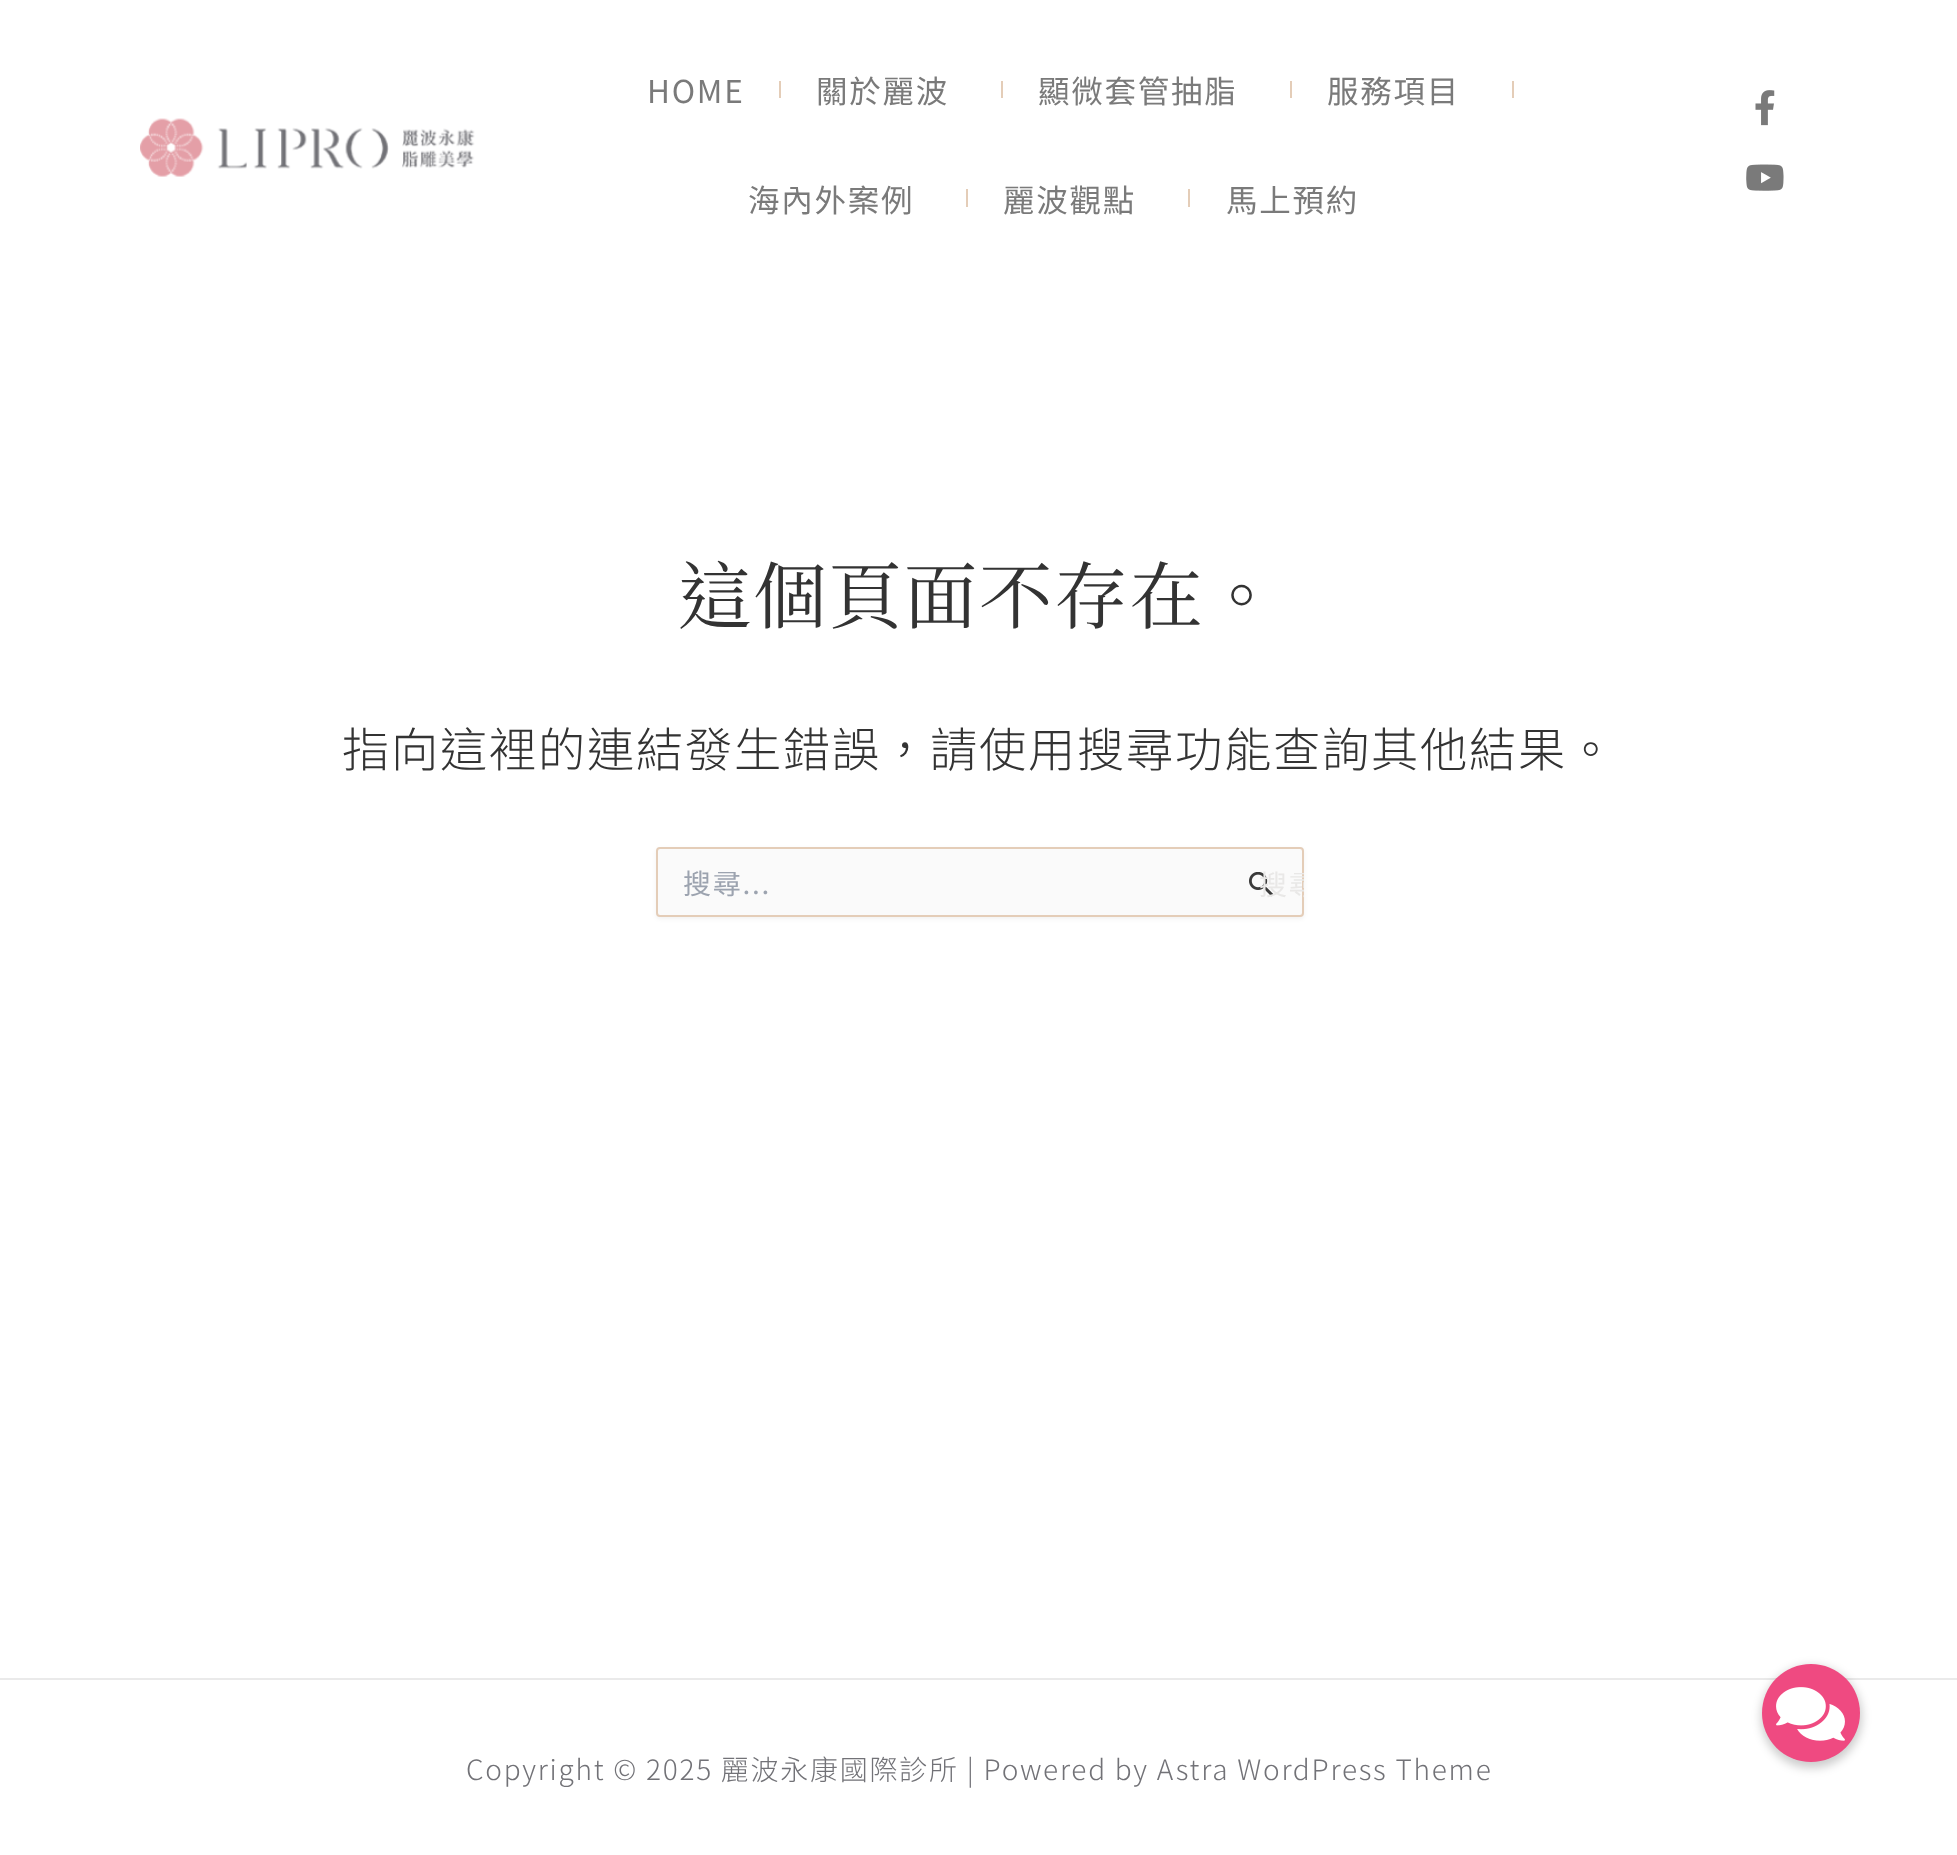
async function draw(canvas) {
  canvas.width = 1957
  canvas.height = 1855
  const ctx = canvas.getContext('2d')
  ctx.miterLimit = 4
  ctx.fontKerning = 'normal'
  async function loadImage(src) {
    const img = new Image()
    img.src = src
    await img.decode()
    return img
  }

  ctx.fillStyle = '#fff'
  ctx.fillRect(0, 0, 1957, 1855)
  ctx.drawImage(await loadImage('image0.png'), 140, 118, 335, 59)
  ctx.letterSpacing = '1.75px'
  ctx.font = '31.5px Noto Sans TC'
  ctx.fillStyle = '#7a7a7a'
  ctx.fillText('HOME', 647, 103)
  ctx.fillStyle = '#e4cdb8'
  ctx.fillRect(779, 81, 2, 17)
  ctx.fillStyle = '#7a7a7a'
  ctx.fillText('關於麗波', 816, 103)
  ctx.fillStyle = '#e4cdb8'
  ctx.fillRect(1001, 81, 2, 17)
  ctx.fillStyle = '#7a7a7a'
  ctx.fillText('顯微套管抽脂', 1038, 103)
  ctx.fillStyle = '#e4cdb8'
  ctx.fillRect(1290, 81, 2, 17)
  ctx.fillStyle = '#7a7a7a'
  ctx.fillText('服務項目', 1327, 103)
  ctx.fillStyle = '#e4cdb8'
  ctx.fillRect(1512, 81, 2, 17)
  ctx.fillStyle = '#7a7a7a'
  ctx.fillText('海內外案例', 748, 212)
  ctx.fillStyle = '#e4cdb8'
  ctx.fillRect(966, 189, 2, 18)
  ctx.fillStyle = '#7a7a7a'
  ctx.fillText('麗波觀點', 1003, 212)
  ctx.fillStyle = '#e4cdb8'
  ctx.fillRect(1188, 189, 2, 18)
  ctx.fillStyle = '#7a7a7a'
  ctx.fillText('馬上預約', 1226, 212)
  ctx.drawImage(await loadImage('image1.png'), 1755, 90, 20, 36)
  ctx.drawImage(await loadImage('image2.png'), 1746, 164, 38, 27)
  ctx.font = '73.5px Noto Serif TC'
  ctx.fillStyle = '#333'
  ctx.fillText('這個頁面不存在。', 678, 623)
  ctx.font = '300 47.25px Noto Sans TC'
  ctx.fillText('指向這裡的連結發生錯誤，請使用搜尋功能查詢其他結果。', 342, 767)
  ctx.fillStyle = '#0000000d'
  ctx.filter = 'blur(2px)'
  ctx.beginPath()
  ctx.roundRect(656, 849, 648, 70, 4)
  ctx.fill()
  ctx.filter = 'none'
  ctx.fillStyle = '#fafafa'
  ctx.beginPath()
  ctx.roundRect(657, 848, 646, 68, 3)
  ctx.fill()
  ctx.strokeStyle = '#e4cdb8'
  ctx.lineWidth = 2
  ctx.stroke()
  ctx.font = '28px Noto Sans TC'
  ctx.fillStyle = '#9ca3af'
  ctx.fillText('搜尋...', 683, 894)
  ctx.drawImage(await loadImage('image3.png'), 1249, 872, 25, 25)
  ctx.save()
  ctx.beginPath()
  ctx.roundRect(1225, 847, 79, 74, 4)
  ctx.clip()
  ctx.fillStyle = '#e9e8e7'
  ctx.fillText('搜尋', 1259, 895)
  ctx.restore()
  ctx.fillStyle = '#eaeaea'
  ctx.fillRect(0, 1678, 1957, 2)
  ctx.font = '300 28px Noto Sans TC'
  ctx.fillStyle = '#727277'
  ctx.fillText('Copyright © 2025 麗波永康國際診所 | Powered by Astra WordPress Theme', 466, 1780)
  ctx.fillStyle = '#00000033'
  ctx.filter = 'blur(5px)'
  ctx.beginPath()
  ctx.roundRect(1761, 1666, 101, 102, 50.5)
  ctx.fill()
  ctx.filter = 'none'
  ctx.fillStyle = '#ef4a81'
  ctx.beginPath()
  ctx.arc(1811, 1713, 49, 0, 2 * Math.PI)
  ctx.fill()
  ctx.drawImage(await loadImage('image4.png'), 1776, 1687, 69, 54)
}

draw(document.querySelector('canvas'))
